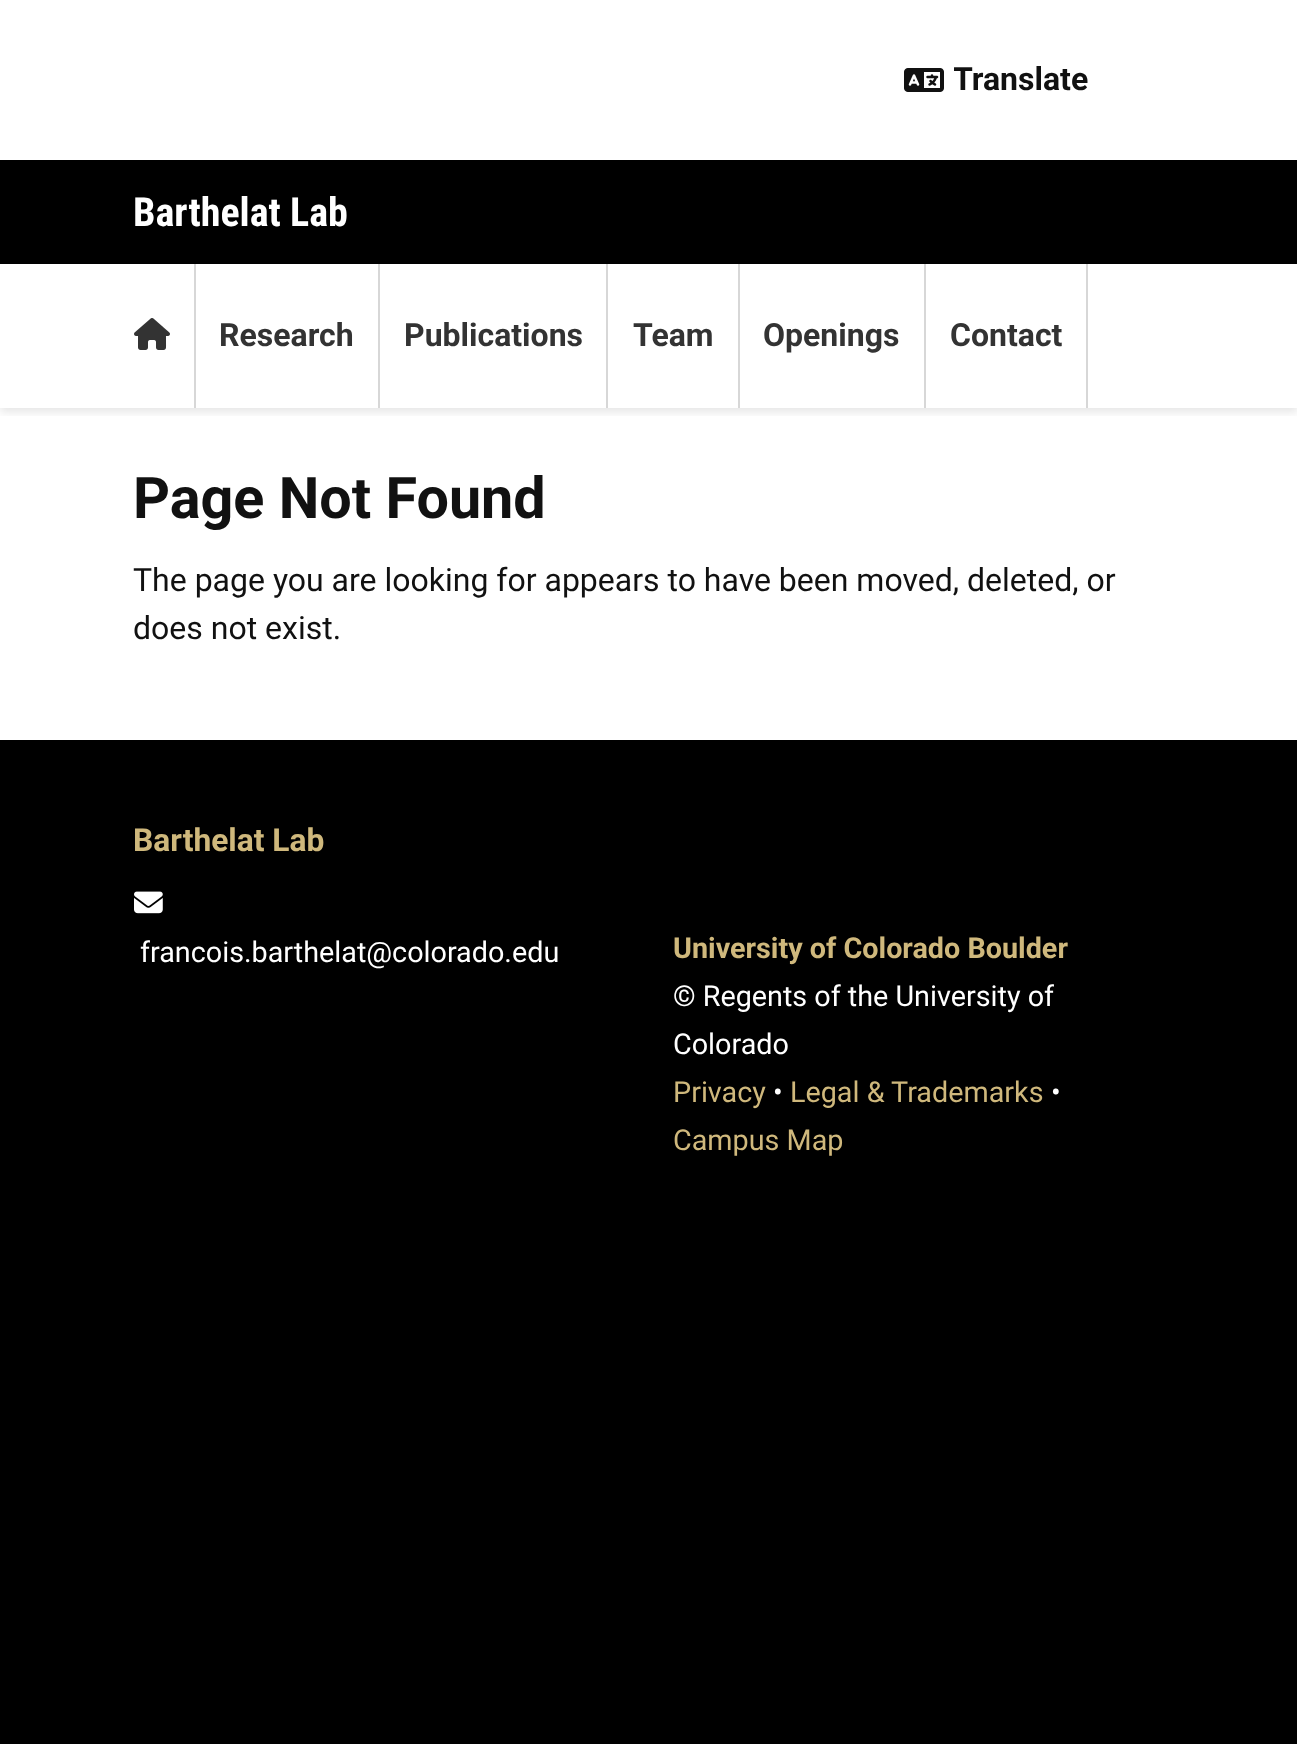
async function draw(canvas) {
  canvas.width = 1297
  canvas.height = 1744
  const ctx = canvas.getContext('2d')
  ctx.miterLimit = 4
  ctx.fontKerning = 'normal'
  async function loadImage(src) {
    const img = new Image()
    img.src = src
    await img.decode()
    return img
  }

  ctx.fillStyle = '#fff'
  ctx.fillRect(0, 0, 1297, 1744)
  ctx.drawImage(await loadImage('image0.png'), 904, 68, 40, 24)
  ctx.save()
  ctx.beginPath()
  ctx.rect(954, 56, 140, 48)
  ctx.clip()
  ctx.font = 'bold 32px Roboto'
  ctx.fillStyle = '#111'
  ctx.fillText('Translate', 953, 90)
  ctx.restore()
  ctx.save()
  ctx.beginPath()
  ctx.rect(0, 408, 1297, 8)
  ctx.clip()
  ctx.fillStyle = '#0000001a'
  ctx.filter = 'blur(5px)'
  ctx.beginPath()
  ctx.rect(0, 268, 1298, 144)
  ctx.fill()
  ctx.filter = 'none'
  ctx.restore()
  ctx.fillStyle = '#000'
  ctx.fillRect(0, 160, 1297, 104)
  ctx.font = 'bold 40px Roboto Condensed'
  ctx.fillStyle = '#fff'
  ctx.fillText('Barthelat Lab', 133, 226)
  ctx.fillStyle = '#d7d7d7'
  ctx.fillRect(194, 264, 2, 144)
  ctx.drawImage(await loadImage('image1.png'), 134, 318, 36, 32)
  ctx.fillRect(378, 264, 2, 144)
  ctx.font = 'bold 32px Roboto'
  ctx.fillStyle = '#333'
  ctx.fillText('Research', 219, 346)
  ctx.fillStyle = '#d7d7d7'
  ctx.fillRect(606, 264, 2, 144)
  ctx.fillStyle = '#333'
  ctx.fillText('Publications', 404, 346)
  ctx.fillStyle = '#d7d7d7'
  ctx.fillRect(738, 264, 2, 144)
  ctx.fillStyle = '#333'
  ctx.fillText('Team', 633, 346)
  ctx.fillStyle = '#d7d7d7'
  ctx.fillRect(924, 264, 2, 144)
  ctx.fillStyle = '#333'
  ctx.fillText('Openings', 763, 346)
  ctx.fillStyle = '#d7d7d7'
  ctx.fillRect(1086, 264, 2, 144)
  ctx.fillStyle = '#333'
  ctx.fillText('Contact', 950, 346)
  ctx.font = 'bold 57.5px Roboto'
  ctx.fillStyle = '#111'
  ctx.fillText('Page Not Found', 133, 518)
  ctx.font = '32px Roboto'
  ctx.fillText('The page you are looking for appears to have been moved, deleted, or', 133, 591)
  ctx.fillText('does not exist.', 133, 639)
  ctx.fillStyle = '#000'
  ctx.fillRect(0, 740, 1297, 1004)
  ctx.font = 'bold 31.75px Roboto'
  ctx.fillStyle = '#cfb87c'
  ctx.fillText('Barthelat Lab', 133, 851)
  ctx.drawImage(await loadImage('image2.png'), 134, 891, 29, 23)
  ctx.font = '28.75px Roboto'
  ctx.fillStyle = '#fff'
  ctx.fillText('francois.barthelat@colorado.edu', 140, 962)
  ctx.font = 'bold 28.75px Roboto'
  ctx.fillStyle = '#cfb87c'
  ctx.fillText('University of Colorado Boulder', 673, 958)
  ctx.font = '28.75px Roboto'
  ctx.fillStyle = '#fff'
  ctx.fillText('© Regents of the University of', 673, 1006)
  ctx.fillText('Colorado', 673, 1054)
  ctx.fillStyle = '#cfb87c'
  ctx.fillText('Privacy', 673, 1102)
  ctx.fillStyle = '#fff'
  ctx.fillText('•', 773, 1102)
  ctx.fillStyle = '#cfb87c'
  ctx.fillText('Legal & Trademarks', 790, 1102)
  ctx.fillStyle = '#fff'
  ctx.fillText('•', 1051, 1102)
  ctx.fillStyle = '#cfb87c'
  ctx.fillText('Campus Map', 673, 1150)
}

draw(document.querySelector('canvas'))
